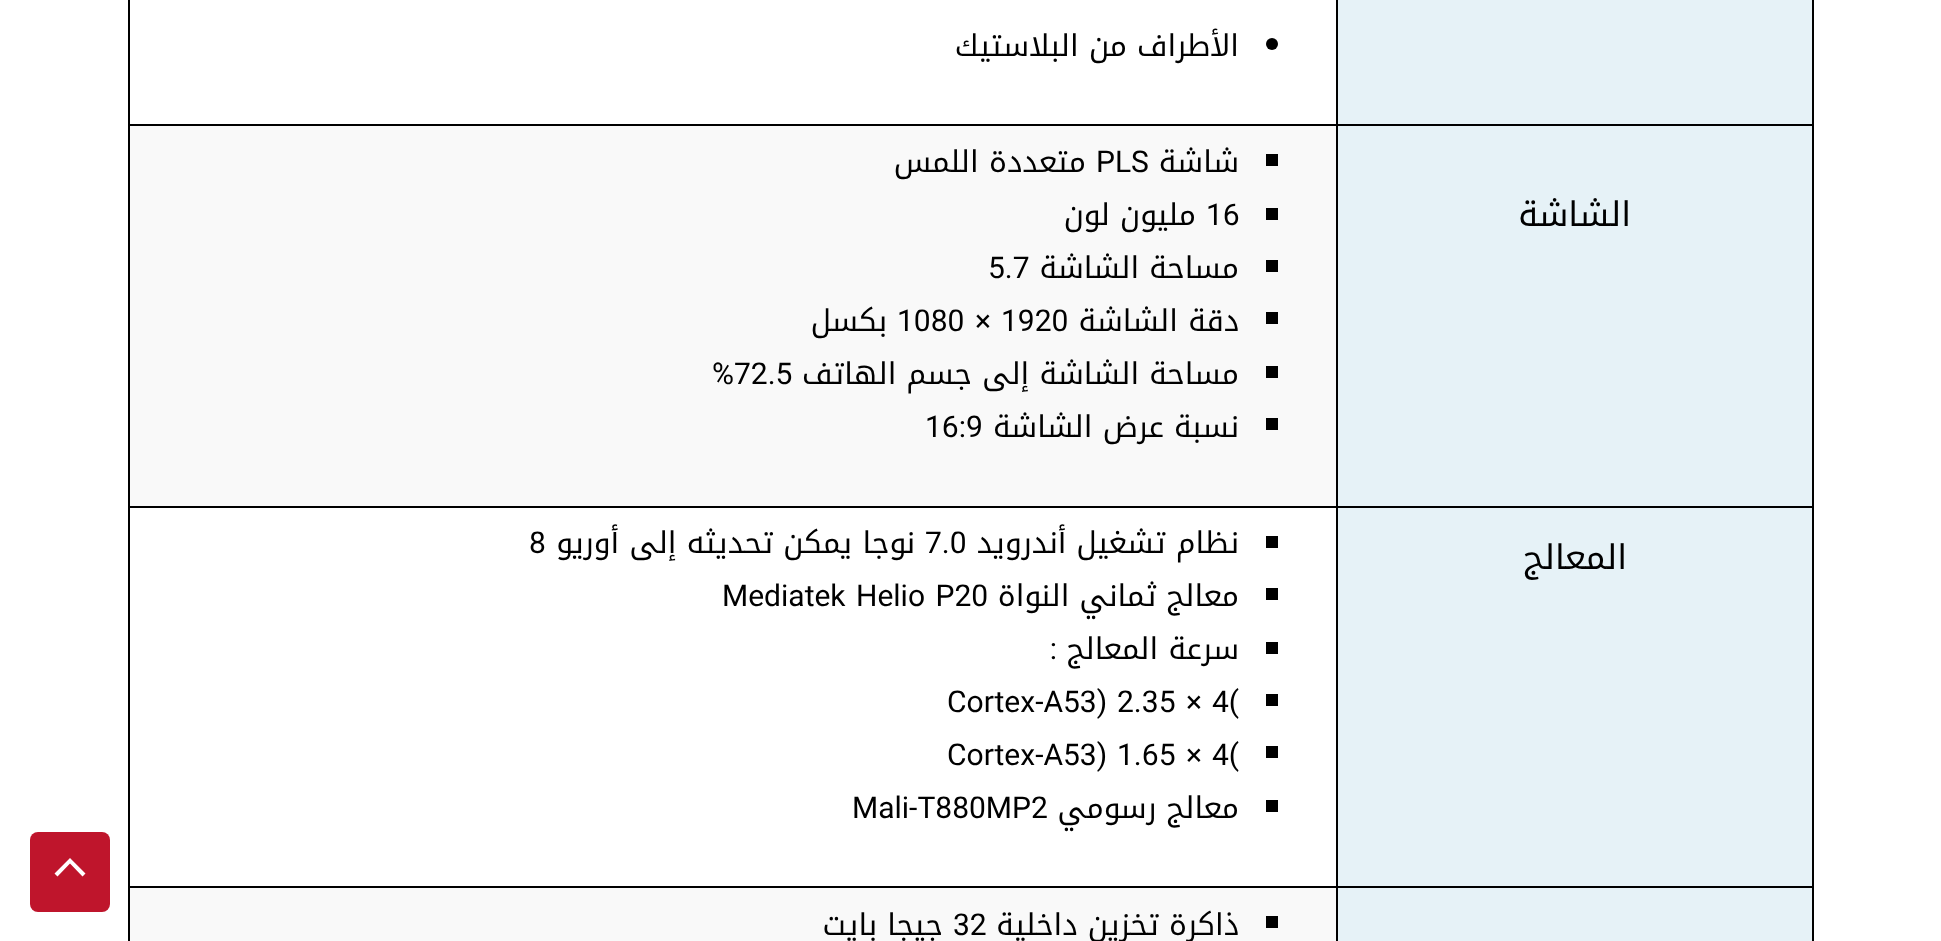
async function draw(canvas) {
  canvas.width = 1941
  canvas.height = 941
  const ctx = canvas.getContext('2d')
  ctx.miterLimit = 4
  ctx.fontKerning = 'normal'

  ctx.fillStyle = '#fff'
  ctx.fillRect(0, 0, 1941, 941)
  ctx.fillStyle = '#e6f2f7'
  ctx.fillRect(1338, 0, 474, 124)
  ctx.fillStyle = '#000'
  ctx.fillRect(1812, 0, 2, 941)
  ctx.fillRect(1336, 886, 2, 55)
  ctx.fillRect(128, 886, 2, 55)
  ctx.fillRect(128, 886, 1686, 2)
  ctx.fillRect(1336, 506, 2, 382)
  ctx.fillRect(128, 506, 2, 382)
  ctx.fillRect(128, 506, 1686, 2)
  ctx.fillRect(1336, 0, 2, 508)
  ctx.fillRect(128, 124, 2, 384)
  ctx.fillRect(128, 124, 1686, 2)
  ctx.fillRect(128, 0, 2, 126)
  ctx.beginPath()
  ctx.arc(1272, 44, 6, 0, 2 * Math.PI)
  ctx.fill()
  ctx.direction = 'rtl'
  ctx.font = '30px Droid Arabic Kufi'
  ctx.fillText('الأطراف من البلاستيك', 1239, 56)
  ctx.fillStyle = '#e6f2f7'
  ctx.fillRect(1338, 126, 474, 380)
  ctx.font = '34px Droid Arabic Kufi'
  ctx.fillStyle = '#000'
  ctx.fillText('الشاشة', 1631, 226)
  ctx.fillStyle = '#f9f9f9'
  ctx.fillRect(130, 126, 1206, 380)
  ctx.fillStyle = '#000'
  ctx.fillRect(1266, 154, 12, 12)
  ctx.font = '30px Droid Arabic Kufi'
  ctx.fillText('شاشة', 1239, 172)
  ctx.direction = 'ltr'
  ctx.font = '30px Roboto'
  ctx.fillText('PLS', 1096, 172)
  ctx.direction = 'rtl'
  ctx.font = '30px Droid Arabic Kufi'
  ctx.fillText('متعددة اللمس', 1086, 172)
  ctx.fillRect(1266, 208, 12, 12)
  ctx.direction = 'ltr'
  ctx.font = '30px Roboto'
  ctx.fillText('16', 1206, 225)
  ctx.direction = 'rtl'
  ctx.font = '30px Droid Arabic Kufi'
  ctx.fillText('مليون لون', 1196, 225)
  ctx.fillRect(1266, 260, 12, 12)
  ctx.fillText('مساحة الشاشة', 1239, 278)
  ctx.direction = 'ltr'
  ctx.font = '30px Roboto'
  ctx.fillText('5.7', 988, 278)
  ctx.fillRect(1266, 312, 12, 12)
  ctx.direction = 'rtl'
  ctx.font = '30px Droid Arabic Kufi'
  ctx.fillText('دقة الشاشة', 1239, 331)
  ctx.direction = 'ltr'
  ctx.font = '30px Roboto'
  ctx.fillText('1920', 1001, 331)
  ctx.fillText('×', 975, 331)
  ctx.fillText('1080', 897, 331)
  ctx.direction = 'rtl'
  ctx.font = '30px Droid Arabic Kufi'
  ctx.fillText('بكسل', 887, 331)
  ctx.fillRect(1266, 366, 12, 12)
  ctx.fillText('مساحة الشاشة إلى جسم الهاتف', 1239, 384)
  ctx.direction = 'ltr'
  ctx.font = '30px Roboto'
  ctx.fillText('%72.5', 712, 384)
  ctx.fillRect(1266, 418, 12, 12)
  ctx.direction = 'rtl'
  ctx.font = '30px Droid Arabic Kufi'
  ctx.fillText('نسبة عرض الشاشة', 1239, 437)
  ctx.direction = 'ltr'
  ctx.font = '30px Roboto'
  ctx.fillText('16:9', 925, 437)
  ctx.fillStyle = '#e6f2f7'
  ctx.fillRect(1338, 508, 474, 378)
  ctx.direction = 'rtl'
  ctx.font = '34px Droid Arabic Kufi'
  ctx.fillStyle = '#000'
  ctx.fillText('المعالج', 1627, 569)
  ctx.fillRect(1266, 536, 12, 12)
  ctx.font = '30px Droid Arabic Kufi'
  ctx.fillText('نظام تشغيل أندرويد', 1239, 553)
  ctx.direction = 'ltr'
  ctx.font = '30px Roboto'
  ctx.fillText('7.0', 925, 553)
  ctx.direction = 'rtl'
  ctx.font = '30px Droid Arabic Kufi'
  ctx.fillText('نوجا يمكن تحديثه إلى أوريو', 915, 553)
  ctx.direction = 'ltr'
  ctx.font = '30px Roboto'
  ctx.fillText('8', 529, 553)
  ctx.fillRect(1266, 588, 12, 12)
  ctx.direction = 'rtl'
  ctx.font = '30px Droid Arabic Kufi'
  ctx.fillText('معالج ثماني النواة', 1239, 606)
  ctx.wordSpacing = '3px'
  ctx.direction = 'ltr'
  ctx.font = '30px Roboto'
  ctx.fillText('Mediatek Helio P20', 722, 606)
  ctx.fillRect(1266, 642, 12, 12)
  ctx.wordSpacing = '0px'
  ctx.direction = 'rtl'
  ctx.font = '30px Droid Arabic Kufi'
  ctx.fillText('سرعة المعالج', 1239, 659)
  ctx.font = '30px Roboto'
  ctx.fillText(':', 1057, 659)
  ctx.fillRect(1266, 694, 12, 12)
  ctx.direction = 'ltr'
  ctx.fillText('4(', 1212, 712)
  ctx.fillText('×', 1186, 712)
  ctx.fillText('2.35', 1117, 712)
  ctx.fillText('Cortex-A53)', 947, 712)
  ctx.fillRect(1266, 746, 12, 12)
  ctx.fillText('4(', 1212, 765)
  ctx.fillText('×', 1186, 765)
  ctx.fillText('1.65', 1117, 765)
  ctx.fillText('Cortex-A53)', 947, 765)
  ctx.fillRect(1266, 800, 12, 12)
  ctx.direction = 'rtl'
  ctx.font = '30px Droid Arabic Kufi'
  ctx.fillText('معالج رسومي', 1239, 818)
  ctx.direction = 'ltr'
  ctx.font = '30px Roboto'
  ctx.fillText('Mali-T880MP2', 852, 818)
  ctx.fillStyle = '#e6f2f7'
  ctx.fillRect(1338, 888, 474, 53)
  ctx.fillStyle = '#f9f9f9'
  ctx.fillRect(130, 888, 1206, 53)
  ctx.fillStyle = '#000'
  ctx.fillRect(1266, 916, 12, 12)
  ctx.direction = 'rtl'
  ctx.font = '30px Droid Arabic Kufi'
  ctx.fillText('ذاكرة تخزين داخلية', 1239, 935)
  ctx.direction = 'ltr'
  ctx.font = '30px Roboto'
  ctx.fillText('32', 953, 935)
  ctx.direction = 'rtl'
  ctx.font = '30px Droid Arabic Kufi'
  ctx.fillText('جيجا بايت', 943, 935)
  ctx.fillStyle = '#bf152c'
  ctx.beginPath()
  ctx.roundRect(30, 832, 80, 80, 8)
  ctx.fill()
  ctx.fillStyle = '#fff'
  ctx.beginPath()
  ctx.moveTo(85.5, 873.5)
  ctx.lineTo(82.5, 876.5)
  ctx.lineTo(70, 863.5)
  ctx.lineTo(57.5, 876.5)
  ctx.lineTo(54.5, 873.5)
  ctx.lineTo(70, 858)
  ctx.closePath()
  ctx.fill()
}

draw(document.querySelector('canvas'))
